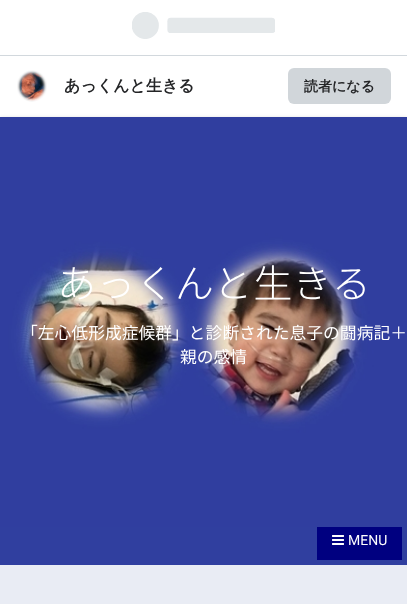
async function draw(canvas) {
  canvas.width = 407
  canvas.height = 604
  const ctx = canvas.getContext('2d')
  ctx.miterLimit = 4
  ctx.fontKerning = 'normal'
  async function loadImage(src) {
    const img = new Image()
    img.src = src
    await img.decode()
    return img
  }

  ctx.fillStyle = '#e9ecf4'
  ctx.fillRect(0, 0, 407, 604)
  ctx.fillStyle = '#fff'
  ctx.fillRect(0, 0, 407, 55)
  ctx.fillStyle = '#d2d8dd'
  ctx.fillRect(0, 55, 407, 1)
  ctx.drawImage(await loadImage('image0.png'), 132, 12, 143, 27)
  ctx.fillStyle = '#fff'
  ctx.fillRect(0, 56, 407, 61)
  ctx.drawImage(await loadImage('image1.png'), 17, 70, 30, 32)
  ctx.font = 'bold 16px WenQuanYi Zen Hei'
  ctx.fillStyle = '#242527'
  ctx.fillText('あっくんと生きる', 64, 91)
  ctx.fillStyle = '#d1d6da'
  ctx.beginPath()
  ctx.roundRect(288, 68, 103, 36, 6)
  ctx.fill()
  ctx.font = 'bold 14px WenQuanYi Zen Hei'
  ctx.fillStyle = '#242527'
  ctx.fillText('読者になる', 304, 91)
  ctx.fillStyle = '#00000042'
  ctx.filter = 'blur(2.5px)'
  ctx.beginPath()
  ctx.rect(0, 119, 407, 410)
  ctx.fill()
  ctx.filter = 'none'
  ctx.drawImage(await loadImage('image2.png'), 0, 117, 407, 410)
  ctx.font = '300 39.25px Noto Sans JP'
  ctx.fillStyle = '#fff'
  ctx.fillText('あっくんと生きる', 57, 298)
  ctx.font = '16.8px Noto Sans JP'
  ctx.fillText('「左心低形成症候群」と診断された息子の闘病記＋', 21, 339)
  ctx.fillText('親の感情', 180, 363)
  ctx.fillStyle = '#303f9f'
  ctx.fillRect(0, 527, 407, 38)
  ctx.fillStyle = '#000080'
  ctx.fillRect(317, 527, 85, 33)
  ctx.drawImage(await loadImage('image3.png'), 332, 535, 12, 10)
  ctx.font = '14px Roboto'
  ctx.fillStyle = '#fff'
  ctx.fillText('MENU', 348, 545)
}

draw(document.querySelector('canvas'))
